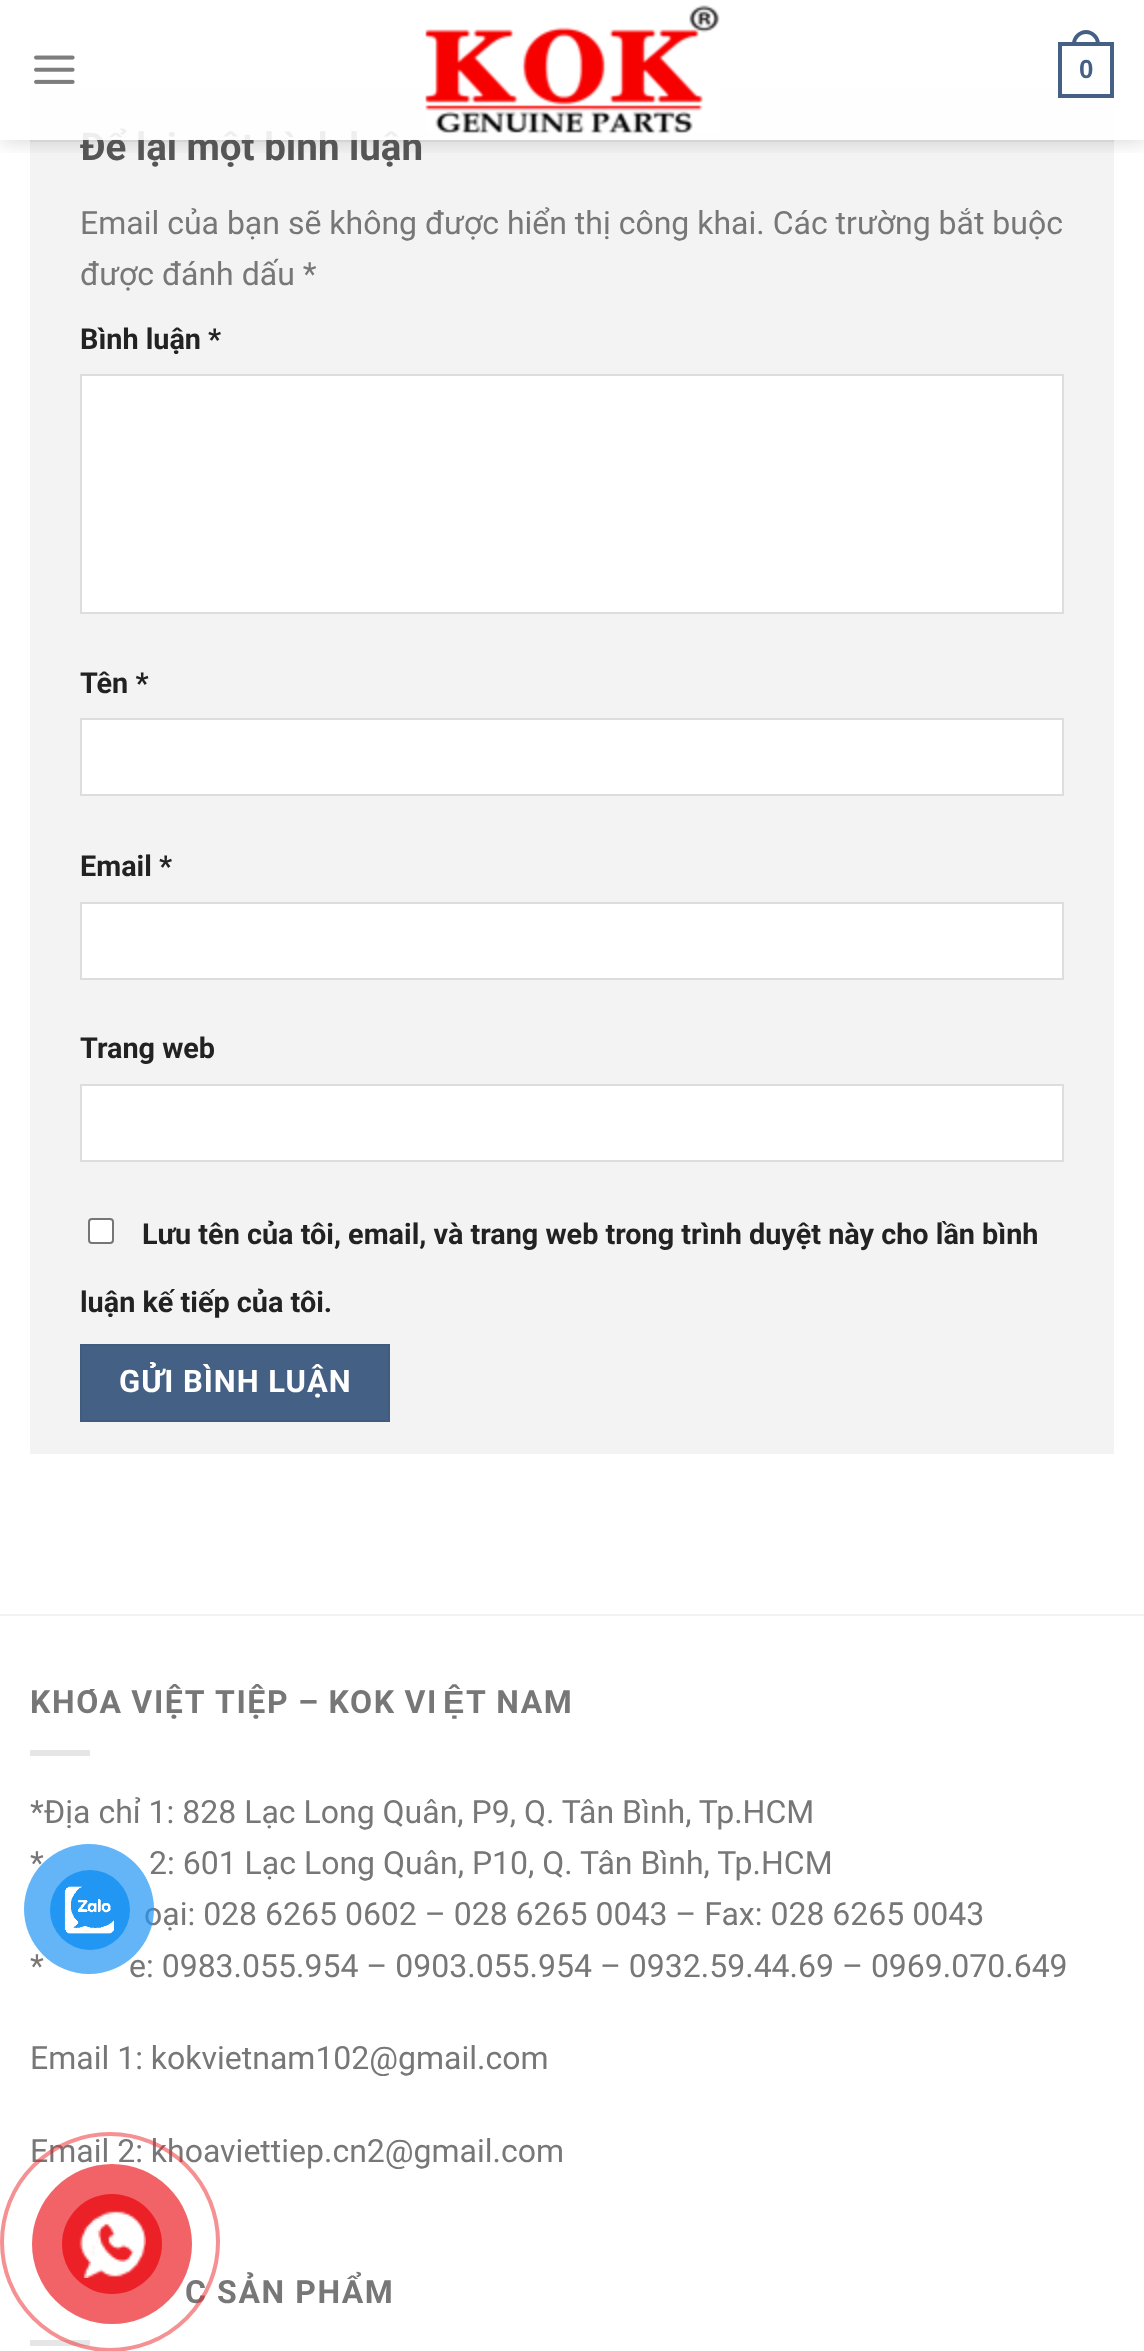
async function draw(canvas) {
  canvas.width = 1144
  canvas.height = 2351
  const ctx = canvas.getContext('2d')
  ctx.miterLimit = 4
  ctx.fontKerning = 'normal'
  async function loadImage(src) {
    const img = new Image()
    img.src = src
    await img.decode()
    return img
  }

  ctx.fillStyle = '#fff'
  ctx.fillRect(0, 0, 1144, 2351)
  ctx.fillStyle = '#f3f3f3'
  ctx.fillRect(30, 88, 1084, 1366)
  ctx.save()
  ctx.beginPath()
  ctx.rect(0, 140, 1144, 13)
  ctx.clip()
  ctx.fillStyle = '#00000026'
  ctx.filter = 'blur(10px)'
  ctx.beginPath()
  ctx.rect(2, 2, 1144, 140)
  ctx.fill()
  ctx.filter = 'none'
  ctx.restore()
  ctx.drawImage(await loadImage('image0.png'), 34, 55, 41, 29)
  ctx.font = 'bold 38.5px Roboto'
  ctx.fillStyle = '#555'
  ctx.fillText('Để lại một bình luận', 80, 160)
  ctx.fillStyle = '#ffffffe6'
  ctx.fillRect(30, 88, 1084, 52)
  ctx.drawImage(await loadImage('image1.png'), 425, 5, 295, 129)
  ctx.strokeStyle = '#446084'
  ctx.lineWidth = 4
  ctx.strokeRect(1060, 44, 52, 52)
  ctx.fillStyle = '#446084'
  ctx.beginPath()
  ctx.moveTo(1086, 30)
  ctx.bezierCurveTo(1093.5, 30, 1100, 36.5, 1100, 44)
  ctx.lineTo(1100, 46)
  ctx.lineTo(1072, 46)
  ctx.lineTo(1072, 44)
  ctx.bezierCurveTo(1072, 36.5, 1078.5, 30, 1086, 30)
  ctx.closePath()
  ctx.moveTo(1086, 34)
  ctx.bezierCurveTo(1091.5, 34, 1096, 38.5, 1096, 44)
  ctx.lineTo(1096, 46)
  ctx.lineTo(1076, 46)
  ctx.lineTo(1076, 44)
  ctx.bezierCurveTo(1076, 38.5, 1080.5, 34, 1086, 34)
  ctx.closePath()
  ctx.fill('evenodd')
  ctx.font = 'bold 26px Liberation Sans'
  ctx.fillText('0', 1079, 78)
  ctx.fillStyle = '#7777771a'
  ctx.fillRect(30, 140, 1084, 2)
  ctx.font = '32px Roboto'
  ctx.fillStyle = '#777'
  ctx.fillText('Email của bạn sẽ không được hiển thị công khai. Các trường bắt buộc', 80, 234)
  ctx.fillText('được đánh dấu *', 80, 285)
  ctx.font = 'bold 28.8px Roboto'
  ctx.fillStyle = '#222'
  ctx.fillText('Bình luận *', 80, 349)
  ctx.fillStyle = '#fff'
  ctx.beginPath()
  ctx.rect(81, 375, 982, 238)
  ctx.fill()
  ctx.strokeStyle = '#ddd'
  ctx.lineWidth = 2
  ctx.stroke()
  ctx.fillStyle = '#222'
  ctx.fillText('Tên *', 80, 693)
  ctx.fillStyle = '#fff'
  ctx.beginPath()
  ctx.rect(81, 719, 982, 76)
  ctx.fill()
  ctx.stroke()
  ctx.fillStyle = '#222'
  ctx.fillText('Email *', 80, 876)
  ctx.fillStyle = '#fff'
  ctx.beginPath()
  ctx.rect(81, 903, 982, 76)
  ctx.fill()
  ctx.stroke()
  ctx.fillStyle = '#222'
  ctx.fillText('Trang web', 80, 1058)
  ctx.fillStyle = '#fff'
  ctx.beginPath()
  ctx.rect(81, 1085, 982, 76)
  ctx.fill()
  ctx.stroke()
  ctx.beginPath()
  ctx.roundRect(89, 1219, 24, 24, 3)
  ctx.fill()
  ctx.strokeStyle = '#767676'
  ctx.stroke()
  ctx.fillStyle = '#222'
  ctx.fillText('Lưu tên của tôi, email, và trang web trong trình duyệt này cho lần bình', 142, 1244)
  ctx.fillText('luận kế tiếp của tôi.', 80, 1312)
  ctx.fillStyle = '#446084'
  ctx.beginPath()
  ctx.rect(81, 1345, 308, 76)
  ctx.fill()
  ctx.strokeStyle = '#415b7d'
  ctx.stroke()
  ctx.letterSpacing = '1px'
  ctx.font = 'bold 31px Roboto'
  ctx.fillStyle = '#fff'
  ctx.fillText('GỬI BÌNH LUẬN', 119, 1392)
  ctx.fillStyle = '#f2f2f2'
  ctx.fillRect(0, 1614, 1144, 2)
  ctx.letterSpacing = '1.6px'
  ctx.wordSpacing = '-0.75px'
  ctx.font = 'bold 32px Roboto'
  ctx.fillStyle = '#777'
  ctx.fillText('KHÓA VIỆT TIỆP – KOK VI', 30, 1713)
  ctx.wordSpacing = '0px'
  ctx.font = 'bold 32px Liberation Sans'
  ctx.fillText('Ệ', 443, 1713)
  ctx.wordSpacing = '-0.75px'
  ctx.font = 'bold 32px Roboto'
  ctx.fillText('T NAM', 466, 1713)
  ctx.fillStyle = '#e6e6e6'
  ctx.fillRect(30, 1750, 60, 6)
  ctx.letterSpacing = '0px'
  ctx.wordSpacing = '0px'
  ctx.font = '32px Roboto'
  ctx.fillStyle = '#777'
  ctx.fillText('*Địa chỉ 1: 828 Lạc Long Quân, P9, Q. Tân Bình, Tp.HCM', 30, 1823)
  ctx.fillText('*', 30, 1874)
  ctx.fillText('2: 601 Lạc Long Quân, P10, Q. Tân Bình, Tp.HCM', 149, 1874)
  ctx.fillText('oại: 028 6265 0602 – 028 6265 0043 – Fax: 028 6265 0043', 144, 1925)
  ctx.fillText('*', 30, 1977)
  ctx.fillText('e: 0983.055.954 – 0903.055.954 – 0932.59.44.69 – 0969.070.649', 129, 1977)
  ctx.fillText('Email 1: kokvietnam102@gmail.com', 30, 2069)
  ctx.fillText('Email 2: khoaviettiep.cn2@gmail.com', 30, 2162)
  ctx.letterSpacing = '1.6px'
  ctx.font = 'bold 32px Roboto'
  ctx.fillText('C SẢN PHẨM', 185, 2303)
  ctx.fillStyle = '#e6e6e6'
  ctx.fillRect(30, 2340, 60, 6)
  ctx.beginPath()
  ctx.arc(110, 2242, 108, 0, 2 * Math.PI)
  ctx.strokeStyle = '#ec212780'
  ctx.lineWidth = 4
  ctx.stroke()
  ctx.fillStyle = '#ec2127b3'
  ctx.beginPath()
  ctx.arc(112, 2244, 80, 0, 2 * Math.PI)
  ctx.fill()
  ctx.fillStyle = '#ec2127'
  ctx.beginPath()
  ctx.arc(112, 2244, 50, 0, 2 * Math.PI)
  ctx.fill()
  ctx.drawImage(await loadImage('image2.png'), 79, 2210, 67, 68)
  ctx.fillStyle = '#2196f3b3'
  ctx.beginPath()
  ctx.arc(89, 1909, 65, 0, 2 * Math.PI)
  ctx.fill()
  ctx.fillStyle = '#2196f3'
  ctx.beginPath()
  ctx.arc(90, 1910, 40, 0, 2 * Math.PI)
  ctx.fill()
  ctx.drawImage(await loadImage('image3.png'), 64, 1886, 50, 48)
}

draw(document.querySelector('canvas'))
